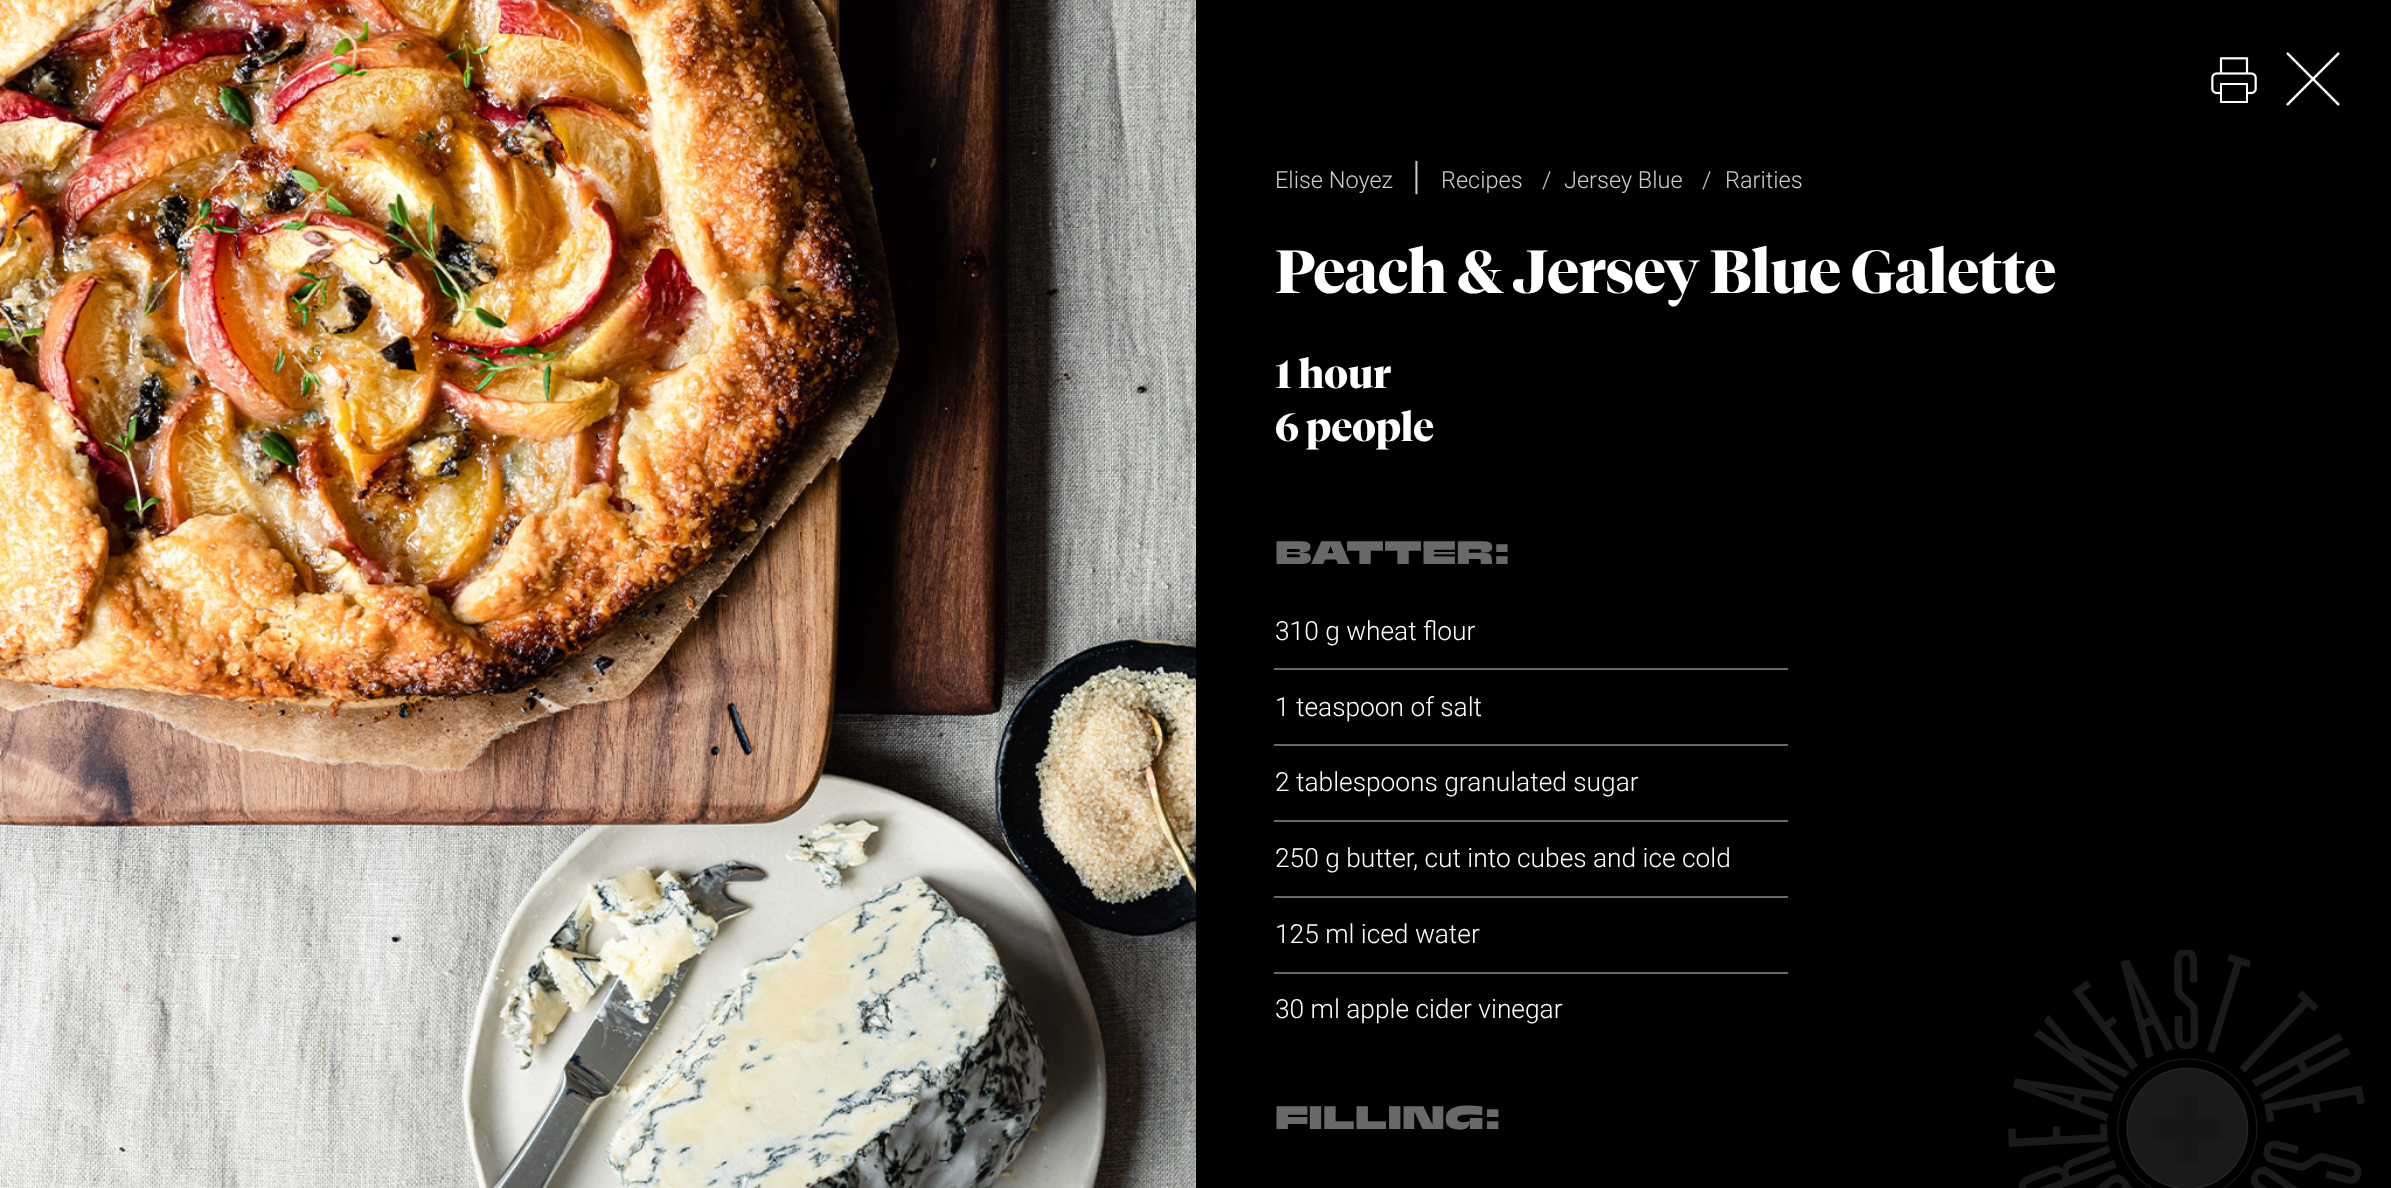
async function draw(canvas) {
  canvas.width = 2391
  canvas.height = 1188
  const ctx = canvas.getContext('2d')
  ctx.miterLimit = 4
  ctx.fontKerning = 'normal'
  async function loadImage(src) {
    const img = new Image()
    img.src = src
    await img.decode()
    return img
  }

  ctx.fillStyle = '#000'
  ctx.fillRect(0, 0, 2391, 1188)
  ctx.drawImage(await loadImage('image0.png'), 0, 0, 1196, 1188)
  ctx.drawImage(await loadImage('image1.png'), 2211, 57, 46, 46)
  ctx.drawImage(await loadImage('image2.png'), 2286, 52, 54, 54)
  ctx.font = '300 23.5px Roboto'
  ctx.fillStyle = '#ccc'
  ctx.fillText('Elise Noyez', 1275, 188)
  ctx.font = '300 39.5px Roboto'
  ctx.fillText('|', 1412, 189)
  ctx.font = '300 23.5px Roboto'
  ctx.fillText('Recipes', 1441, 188)
  ctx.fillText('/', 1542, 188)
  ctx.fillText('Jersey Blue', 1564, 188)
  ctx.fillText('/', 1702, 188)
  ctx.fillText('Rarities', 1725, 188)
  ctx.font = 'bold 60.5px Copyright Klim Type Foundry'
  ctx.fillStyle = '#fff'
  ctx.fillText('Peach & Jersey Blue Galette', 1275, 293)
  ctx.font = 'bold 39.5px Copyright Klim Type Foundry'
  ctx.fillText('1 hour', 1275, 388)
  ctx.fillText('6 people', 1275, 441)
  ctx.font = '900 39.5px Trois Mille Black'
  ctx.fillStyle = '#696969'
  ctx.fillText('BATTER:', 1275, 564)
  ctx.fillRect(1274, 668, 514, 2)
  ctx.font = '300 26.3px Roboto'
  ctx.fillStyle = '#fff'
  ctx.fillText('310 g wheat flour', 1275, 640)
  ctx.fillStyle = '#696969'
  ctx.fillRect(1274, 744, 514, 2)
  ctx.fillStyle = '#fff'
  ctx.fillText('1 teaspoon of salt', 1275, 716)
  ctx.fillStyle = '#696969'
  ctx.fillRect(1274, 820, 514, 2)
  ctx.fillStyle = '#fff'
  ctx.fillText('2 tablespoons granulated sugar', 1275, 791)
  ctx.fillStyle = '#696969'
  ctx.fillRect(1274, 896, 514, 2)
  ctx.fillStyle = '#fff'
  ctx.fillText('250 g butter, cut into cubes and ice cold', 1275, 867)
  ctx.fillStyle = '#696969'
  ctx.fillRect(1274, 972, 514, 2)
  ctx.fillStyle = '#fff'
  ctx.fillText('125 ml iced water', 1275, 943)
  ctx.fillText('30 ml apple cider vinegar', 1275, 1018)
  ctx.font = '900 39.5px Trois Mille Black'
  ctx.fillStyle = '#696969'
  ctx.fillText('FILLING:', 1275, 1129)
  ctx.drawImage(await loadImage('image3.png'), 2008, 950, 357, 238)
}

draw(document.querySelector('canvas'))
